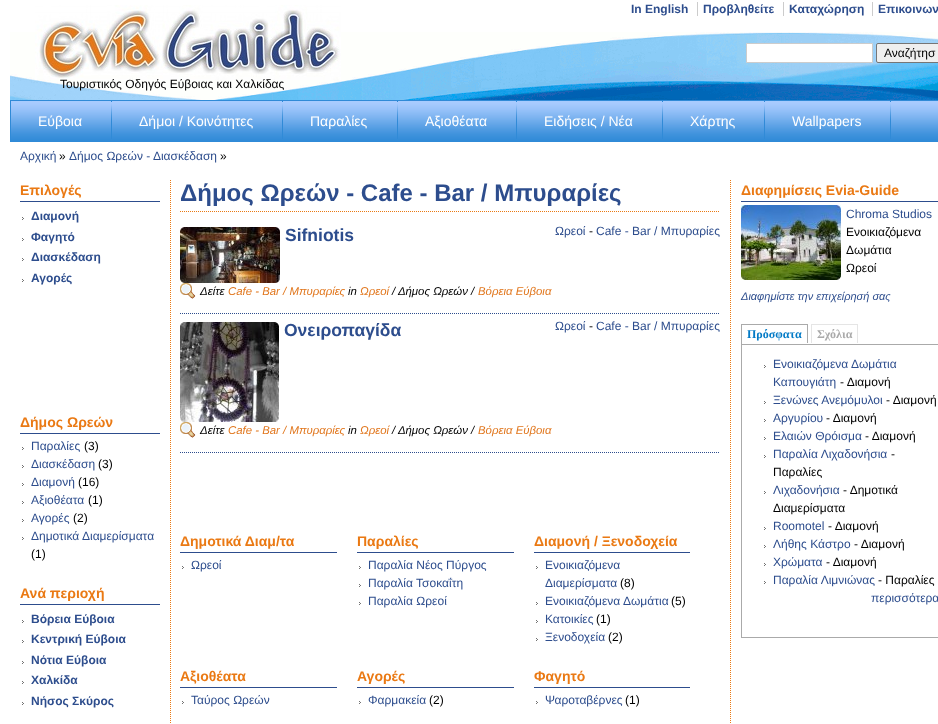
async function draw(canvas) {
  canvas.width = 938
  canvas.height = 724
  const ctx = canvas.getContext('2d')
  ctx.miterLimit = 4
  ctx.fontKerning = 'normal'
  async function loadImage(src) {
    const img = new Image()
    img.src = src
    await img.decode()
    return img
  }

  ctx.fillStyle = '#fff'
  ctx.fillRect(0, 0, 938, 724)
  ctx.drawImage(await loadImage('image0.png'), 10, 32, 928, 68)
  ctx.font = 'bold 12px Liberation Sans'
  ctx.fillStyle = '#2d4d8d'
  ctx.fillText('In English', 631, 13)
  ctx.fillText('Προβληθείτε', 703, 13)
  ctx.fillStyle = '#ccc'
  ctx.fillRect(697, 2, 1, 14)
  ctx.fillStyle = '#2d4d8d'
  ctx.fillText('Καταχώρηση', 789, 13)
  ctx.fillStyle = '#ccc'
  ctx.fillRect(783, 2, 1, 14)
  ctx.fillStyle = '#2d4d8d'
  ctx.fillText('Επικοινων', 878, 13)
  ctx.fillStyle = '#ccc'
  ctx.fillRect(872, 2, 1, 14)
  ctx.fillStyle = '#fff'
  ctx.beginPath()
  ctx.rect(746.5, 43.5, 126, 19)
  ctx.fill()
  ctx.strokeStyle = '#ccc'
  ctx.stroke()
  ctx.fillStyle = '#efefef'
  ctx.beginPath()
  ctx.roundRect(876.5, 43.5, 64, 19, 1.5)
  ctx.fill()
  ctx.strokeStyle = '#767676'
  ctx.stroke()
  ctx.font = '12px Liberation Sans'
  ctx.fillStyle = '#000'
  ctx.fillText('Αναζήτησ', 884, 57)
  ctx.drawImage(await loadImage('image1.png'), 35, 5, 306, 75)
  ctx.fillText('Τουριστικός Οδηγός Εύβοιας και Χαλκίδας', 60, 88)
  ctx.drawImage(await loadImage('image2.png'), 11, 101, 927, 40)
  ctx.strokeStyle = '#308ad7'
  ctx.strokeRect(10.5, 100.5, 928, 41)
  ctx.drawImage(await loadImage('image3.png'), 111, 101, 1, 38)
  ctx.font = '14px Liberation Sans'
  ctx.fillStyle = '#fff'
  ctx.fillText('Εύβοια', 38, 126)
  ctx.drawImage(await loadImage('image3.png'), 282, 101, 1, 38)
  ctx.fillText('Δήμοι / Κοινότητες', 139, 126)
  ctx.drawImage(await loadImage('image3.png'), 397, 101, 1, 38)
  ctx.fillText('Παραλίες', 310, 126)
  ctx.drawImage(await loadImage('image3.png'), 516, 101, 1, 38)
  ctx.fillText('Αξιοθέατα', 425, 126)
  ctx.drawImage(await loadImage('image3.png'), 662, 101, 1, 38)
  ctx.fillText('Ειδήσεις / Νέα', 544, 126)
  ctx.drawImage(await loadImage('image3.png'), 764, 101, 1, 38)
  ctx.fillText('Χάρτης', 690, 126)
  ctx.drawImage(await loadImage('image3.png'), 890, 101, 1, 38)
  ctx.fillText('Wallpapers', 792, 126)
  ctx.font = '12px Liberation Sans'
  ctx.fillStyle = '#2d4d8d'
  ctx.fillText('Αρχική', 20, 160)
  ctx.fillStyle = '#000'
  ctx.fillText('»', 59, 160)
  ctx.fillStyle = '#2d4d8d'
  ctx.fillText('Δήμος Ωρεών - Διασκέδαση', 69, 160)
  ctx.fillStyle = '#000'
  ctx.fillText('»', 220, 160)
  ctx.beginPath()
  ctx.moveTo(170.5, 180)
  ctx.lineTo(170.5, 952)
  ctx.strokeStyle = '#ea7913'
  ctx.setLineDash([1, 1])
  ctx.stroke()
  ctx.fillStyle = '#2d4d8d'
  ctx.fillRect(20, 201, 140, 1)
  ctx.font = 'bold 14px Liberation Sans'
  ctx.fillStyle = '#ea7913'
  ctx.fillText('Επιλογές', 20, 195)
  ctx.drawImage(await loadImage('image4.png'), 22, 217, 2, 3)
  ctx.font = 'bold 12px Liberation Sans'
  ctx.fillStyle = '#2d4d8d'
  ctx.fillText('Διαμονή', 31, 220)
  ctx.drawImage(await loadImage('image4.png'), 22, 238, 2, 3)
  ctx.fillText('Φαγητό', 31, 241)
  ctx.drawImage(await loadImage('image4.png'), 22, 258, 2, 3)
  ctx.fillText('Διασκέδαση', 31, 261)
  ctx.drawImage(await loadImage('image4.png'), 22, 279, 2, 3)
  ctx.fillText('Αγορές', 31, 282)
  ctx.fillRect(20, 433, 140, 1)
  ctx.font = 'bold 14px Liberation Sans'
  ctx.fillStyle = '#ea7913'
  ctx.fillText('Δήμος Ωρεών', 20, 427)
  ctx.drawImage(await loadImage('image4.png'), 22, 447, 2, 3)
  ctx.font = '12px Liberation Sans'
  ctx.fillStyle = '#2d4d8d'
  ctx.fillText('Παραλίες', 31, 450)
  ctx.fillStyle = '#000'
  ctx.fillText('(3)', 84, 450)
  ctx.drawImage(await loadImage('image4.png'), 22, 465, 2, 3)
  ctx.fillStyle = '#2d4d8d'
  ctx.fillText('Διασκέδαση', 31, 468)
  ctx.fillStyle = '#000'
  ctx.fillText('(3)', 98, 468)
  ctx.drawImage(await loadImage('image4.png'), 22, 483, 2, 3)
  ctx.fillStyle = '#2d4d8d'
  ctx.fillText('Διαμονή', 31, 486)
  ctx.fillStyle = '#000'
  ctx.fillText('(16)', 78, 486)
  ctx.drawImage(await loadImage('image4.png'), 22, 501, 2, 3)
  ctx.fillStyle = '#2d4d8d'
  ctx.fillText('Αξιοθέατα', 31, 504)
  ctx.fillStyle = '#000'
  ctx.fillText('(1)', 88, 504)
  ctx.drawImage(await loadImage('image4.png'), 22, 519, 2, 3)
  ctx.fillStyle = '#2d4d8d'
  ctx.fillText('Αγορές', 31, 522)
  ctx.fillStyle = '#000'
  ctx.fillText('(2)', 73, 522)
  ctx.drawImage(await loadImage('image4.png'), 22, 537, 2, 3)
  ctx.fillStyle = '#2d4d8d'
  ctx.fillText('Δημοτικά Διαμερίσματα', 31, 540)
  ctx.fillStyle = '#000'
  ctx.fillText('(1)', 31, 558)
  ctx.fillStyle = '#2d4d8d'
  ctx.fillRect(20, 604, 140, 1)
  ctx.font = 'bold 14px Liberation Sans'
  ctx.fillStyle = '#ea7913'
  ctx.fillText('Ανά περιοχή', 20, 598)
  ctx.drawImage(await loadImage('image4.png'), 22, 620, 2, 3)
  ctx.font = 'bold 12px Liberation Sans'
  ctx.fillStyle = '#2d4d8d'
  ctx.fillText('Βόρεια Εύβοια', 31, 623)
  ctx.drawImage(await loadImage('image4.png'), 22, 640, 2, 3)
  ctx.fillText('Κεντρική Εύβοια', 31, 643)
  ctx.drawImage(await loadImage('image4.png'), 22, 661, 2, 3)
  ctx.fillText('Νότια Εύβοια', 31, 664)
  ctx.drawImage(await loadImage('image4.png'), 22, 681, 2, 3)
  ctx.fillText('Χαλκίδα', 31, 684)
  ctx.drawImage(await loadImage('image4.png'), 22, 702, 2, 3)
  ctx.fillText('Νήσος Σκύρος', 31, 705)
  ctx.beginPath()
  ctx.moveTo(180, 211.5)
  ctx.lineTo(720, 211.5)
  ctx.stroke()
  ctx.font = 'bold 24px Liberation Sans'
  ctx.fillText('Δήμος Ωρεών - Cafe - Bar / Μπυραρίες', 180, 201)
  ctx.beginPath()
  ctx.moveTo(180, 313.5)
  ctx.lineTo(720, 313.5)
  ctx.strokeStyle = '#2d4d8d'
  ctx.stroke()
  ctx.drawImage(await loadImage('image5.png'), 180, 227, 100, 56)
  ctx.font = 'bold 17.5px Liberation Sans'
  ctx.fillText('Sifniotis', 285, 241)
  ctx.font = '12px Liberation Sans'
  ctx.fillText('Ωρεοί', 555, 235)
  ctx.fillStyle = '#000'
  ctx.fillText('-', 589, 235)
  ctx.fillStyle = '#2d4d8d'
  ctx.fillText('Cafe - Bar / Μπυραρίες', 596, 235)
  ctx.drawImage(await loadImage('image6.png'), 180, 283, 16, 16)
  ctx.font = 'italic 11.4px Liberation Sans'
  ctx.fillStyle = '#000'
  ctx.fillText('Δείτε', 200, 295)
  ctx.fillStyle = '#e1771e'
  ctx.fillText('Cafe - Bar / Μπυραρίες', 228, 295)
  ctx.fillStyle = '#000'
  ctx.fillText('in', 348, 295)
  ctx.fillStyle = '#e1771e'
  ctx.fillText('Ωρεοί', 360, 295)
  ctx.fillStyle = '#000'
  ctx.fillText('/ Δήμος Ωρεών /', 392, 295)
  ctx.fillStyle = '#e1771e'
  ctx.fillText('Βόρεια Εύβοια', 478, 295)
  ctx.beginPath()
  ctx.moveTo(180, 452.5)
  ctx.lineTo(720, 452.5)
  ctx.stroke()
  ctx.drawImage(await loadImage('image7.png'), 180, 322, 99, 100)
  ctx.font = 'bold 17.5px Liberation Sans'
  ctx.fillStyle = '#2d4d8d'
  ctx.fillText('Ονειροπαγίδα', 284, 336)
  ctx.font = '12px Liberation Sans'
  ctx.fillText('Ωρεοί', 555, 330)
  ctx.fillStyle = '#000'
  ctx.fillText('-', 589, 330)
  ctx.fillStyle = '#2d4d8d'
  ctx.fillText('Cafe - Bar / Μπυραρίες', 596, 330)
  ctx.drawImage(await loadImage('image6.png'), 180, 422, 16, 16)
  ctx.font = 'italic 11.4px Liberation Sans'
  ctx.fillStyle = '#000'
  ctx.fillText('Δείτε', 200, 434)
  ctx.fillStyle = '#e1771e'
  ctx.fillText('Cafe - Bar / Μπυραρίες', 228, 434)
  ctx.fillStyle = '#000'
  ctx.fillText('in', 348, 434)
  ctx.fillStyle = '#e1771e'
  ctx.fillText('Ωρεοί', 360, 434)
  ctx.fillStyle = '#000'
  ctx.fillText('/ Δήμος Ωρεών /', 392, 434)
  ctx.fillStyle = '#e1771e'
  ctx.fillText('Βόρεια Εύβοια', 478, 434)
  ctx.fillStyle = '#2d4d8d'
  ctx.fillRect(180, 552, 157, 1)
  ctx.font = 'bold 14px Liberation Sans'
  ctx.fillStyle = '#ea7913'
  ctx.fillText('Δημοτικά Διαμ/τα', 180, 546)
  ctx.drawImage(await loadImage('image4.png'), 182, 566, 2, 3)
  ctx.font = '12px Liberation Sans'
  ctx.fillStyle = '#2d4d8d'
  ctx.fillText('Ωρεοί', 191, 569)
  ctx.fillRect(357, 552, 157, 1)
  ctx.font = 'bold 14px Liberation Sans'
  ctx.fillStyle = '#ea7913'
  ctx.fillText('Παραλίες', 357, 546)
  ctx.drawImage(await loadImage('image4.png'), 359, 566, 2, 3)
  ctx.font = '12px Liberation Sans'
  ctx.fillStyle = '#2d4d8d'
  ctx.fillText('Παραλία Νέος Πύργος', 368, 569)
  ctx.drawImage(await loadImage('image4.png'), 359, 584, 2, 3)
  ctx.fillText('Παραλία Τσοκαΐτη', 368, 587)
  ctx.drawImage(await loadImage('image4.png'), 359, 602, 2, 3)
  ctx.fillText('Παραλία Ωρεοί', 368, 605)
  ctx.fillRect(534, 552, 156, 1)
  ctx.font = 'bold 14px Liberation Sans'
  ctx.fillStyle = '#ea7913'
  ctx.fillText('Διαμονή / Ξενοδοχεία', 534, 546)
  ctx.drawImage(await loadImage('image4.png'), 536, 566, 2, 3)
  ctx.font = '12px Liberation Sans'
  ctx.fillStyle = '#2d4d8d'
  ctx.fillText('Ενοικιαζόμενα', 545, 569)
  ctx.fillText('Διαμερίσματα', 545, 587)
  ctx.fillStyle = '#000'
  ctx.fillText('(8)', 620, 587)
  ctx.drawImage(await loadImage('image4.png'), 536, 602, 2, 3)
  ctx.fillStyle = '#2d4d8d'
  ctx.fillText('Ενοικιαζόμενα Δωμάτια', 545, 605)
  ctx.fillStyle = '#000'
  ctx.fillText('(5)', 671, 605)
  ctx.drawImage(await loadImage('image4.png'), 536, 620, 2, 3)
  ctx.fillStyle = '#2d4d8d'
  ctx.fillText('Κατοικίες', 545, 623)
  ctx.fillStyle = '#000'
  ctx.fillText('(1)', 596, 623)
  ctx.drawImage(await loadImage('image4.png'), 536, 638, 2, 3)
  ctx.fillStyle = '#2d4d8d'
  ctx.fillText('Ξενοδοχεία', 545, 641)
  ctx.fillStyle = '#000'
  ctx.fillText('(2)', 608, 641)
  ctx.fillStyle = '#2d4d8d'
  ctx.fillRect(180, 687, 157, 1)
  ctx.font = 'bold 14px Liberation Sans'
  ctx.fillStyle = '#ea7913'
  ctx.fillText('Αξιοθέατα', 180, 681)
  ctx.drawImage(await loadImage('image4.png'), 182, 701, 2, 3)
  ctx.font = '12px Liberation Sans'
  ctx.fillStyle = '#2d4d8d'
  ctx.fillText('Ταύρος Ωρεών', 191, 704)
  ctx.fillRect(357, 687, 157, 1)
  ctx.font = 'bold 14px Liberation Sans'
  ctx.fillStyle = '#ea7913'
  ctx.fillText('Αγορές', 357, 681)
  ctx.drawImage(await loadImage('image4.png'), 359, 701, 2, 3)
  ctx.font = '12px Liberation Sans'
  ctx.fillStyle = '#2d4d8d'
  ctx.fillText('Φαρμακεία', 368, 704)
  ctx.fillStyle = '#000'
  ctx.fillText('(2)', 429, 704)
  ctx.fillStyle = '#2d4d8d'
  ctx.fillRect(534, 687, 156, 1)
  ctx.font = 'bold 14px Liberation Sans'
  ctx.fillStyle = '#ea7913'
  ctx.fillText('Φαγητό', 534, 681)
  ctx.drawImage(await loadImage('image4.png'), 536, 701, 2, 3)
  ctx.font = '12px Liberation Sans'
  ctx.fillStyle = '#2d4d8d'
  ctx.fillText('Ψαροταβέρνες', 545, 704)
  ctx.fillStyle = '#000'
  ctx.fillText('(1)', 625, 704)
  ctx.beginPath()
  ctx.moveTo(730.5, 180)
  ctx.lineTo(730.5, 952)
  ctx.strokeStyle = '#ea7913'
  ctx.stroke()
  ctx.fillStyle = '#2d4d8d'
  ctx.fillRect(741, 201, 197, 1)
  ctx.font = 'bold 14px Liberation Sans'
  ctx.fillStyle = '#ea7913'
  ctx.fillText('Διαφημίσεις Evia-Guide', 741, 195)
  ctx.drawImage(await loadImage('image8.png'), 741, 205, 100, 75)
  ctx.font = '12px Liberation Sans'
  ctx.fillStyle = '#2d4d8d'
  ctx.fillText('Chroma Studios', 846, 218)
  ctx.fillStyle = '#000'
  ctx.fillText('Ενοικιαζόμενα', 846, 236)
  ctx.fillText('Δωμάτια', 846, 254)
  ctx.fillText('Ωρεοί', 846, 272)
  ctx.font = 'italic 11px Liberation Sans'
  ctx.fillStyle = '#2d4d8d'
  ctx.fillText('Διαφημίστε την επιχείρησή σας', 741, 300)
  ctx.fillStyle = '#aaa'
  ctx.fillRect(741, 344, 197, 1)
  ctx.font = 'bold 12px Liberation Serif'
  ctx.fillStyle = '#027ac6'
  ctx.fillText('Πρόσφατα', 747, 338)
  ctx.fillStyle = '#aaa'
  ctx.fillRect(741, 324, 67, 1)
  ctx.fillRect(807, 324, 1, 20)
  ctx.fillStyle = '#fff'
  ctx.fillRect(807, 343, 1, 1)
  ctx.fillStyle = '#aaa'
  ctx.fillRect(741, 324, 1, 20)
  ctx.fillText('Σχόλια', 817, 338)
  ctx.fillStyle = '#e5e5e5'
  ctx.fillRect(811, 324, 47, 1)
  ctx.fillRect(857, 324, 1, 19)
  ctx.fillRect(811, 324, 1, 19)
  ctx.fillStyle = '#aaa'
  ctx.fillRect(741, 637, 197, 1)
  ctx.fillRect(741, 345, 1, 293)
  ctx.drawImage(await loadImage('image4.png'), 764, 365, 2, 3)
  ctx.font = '12px Liberation Sans'
  ctx.fillStyle = '#2d4d8d'
  ctx.fillText('Ενοικιαζόμενα Δωμάτια', 773, 368)
  ctx.fillText('Καπουγιάτη', 773, 386)
  ctx.fillStyle = '#000'
  ctx.fillText('- Διαμονή', 840, 386)
  ctx.drawImage(await loadImage('image4.png'), 764, 401, 2, 3)
  ctx.fillStyle = '#2d4d8d'
  ctx.fillText('Ξενώνες Ανεμόμυλοι', 773, 404)
  ctx.fillStyle = '#000'
  ctx.fillText('- Διαμονή', 886, 404)
  ctx.drawImage(await loadImage('image4.png'), 764, 419, 2, 3)
  ctx.fillStyle = '#2d4d8d'
  ctx.fillText('Αργυρίου', 773, 422)
  ctx.fillStyle = '#000'
  ctx.fillText('- Διαμονή', 826, 422)
  ctx.drawImage(await loadImage('image4.png'), 764, 437, 2, 3)
  ctx.fillStyle = '#2d4d8d'
  ctx.fillText('Ελαιών Θρόισμα', 773, 440)
  ctx.fillStyle = '#000'
  ctx.fillText('- Διαμονή', 865, 440)
  ctx.drawImage(await loadImage('image4.png'), 764, 455, 2, 3)
  ctx.fillStyle = '#2d4d8d'
  ctx.fillText('Παραλία Λιχαδονήσια', 773, 458)
  ctx.fillStyle = '#000'
  ctx.fillText('-', 891, 458)
  ctx.fillText('Παραλίες', 773, 476)
  ctx.drawImage(await loadImage('image4.png'), 764, 491, 2, 3)
  ctx.fillStyle = '#2d4d8d'
  ctx.fillText('Λιχαδονήσια', 773, 494)
  ctx.fillStyle = '#000'
  ctx.fillText('- Δημοτικά', 843, 494)
  ctx.fillText('Διαμερίσματα', 773, 512)
  ctx.drawImage(await loadImage('image4.png'), 764, 527, 2, 3)
  ctx.fillStyle = '#2d4d8d'
  ctx.fillText('Roomotel', 773, 530)
  ctx.fillStyle = '#000'
  ctx.fillText('- Διαμονή', 828, 530)
  ctx.drawImage(await loadImage('image4.png'), 764, 545, 2, 3)
  ctx.fillStyle = '#2d4d8d'
  ctx.fillText('Λήθης Κάστρο', 773, 548)
  ctx.fillStyle = '#000'
  ctx.fillText('- Διαμονή', 854, 548)
  ctx.drawImage(await loadImage('image4.png'), 764, 563, 2, 3)
  ctx.fillStyle = '#2d4d8d'
  ctx.fillText('Χρώματα', 773, 566)
  ctx.fillStyle = '#000'
  ctx.fillText('- Διαμονή', 826, 566)
  ctx.drawImage(await loadImage('image4.png'), 764, 581, 2, 3)
  ctx.fillStyle = '#2d4d8d'
  ctx.fillText('Παραλία Λιμνιώνας', 773, 584)
  ctx.fillStyle = '#000'
  ctx.fillText('- Παραλίες', 878, 584)
  ctx.fillStyle = '#2d4d8d'
  ctx.fillText('περισσότερα', 871, 602)
}

draw(document.querySelector('canvas'))
